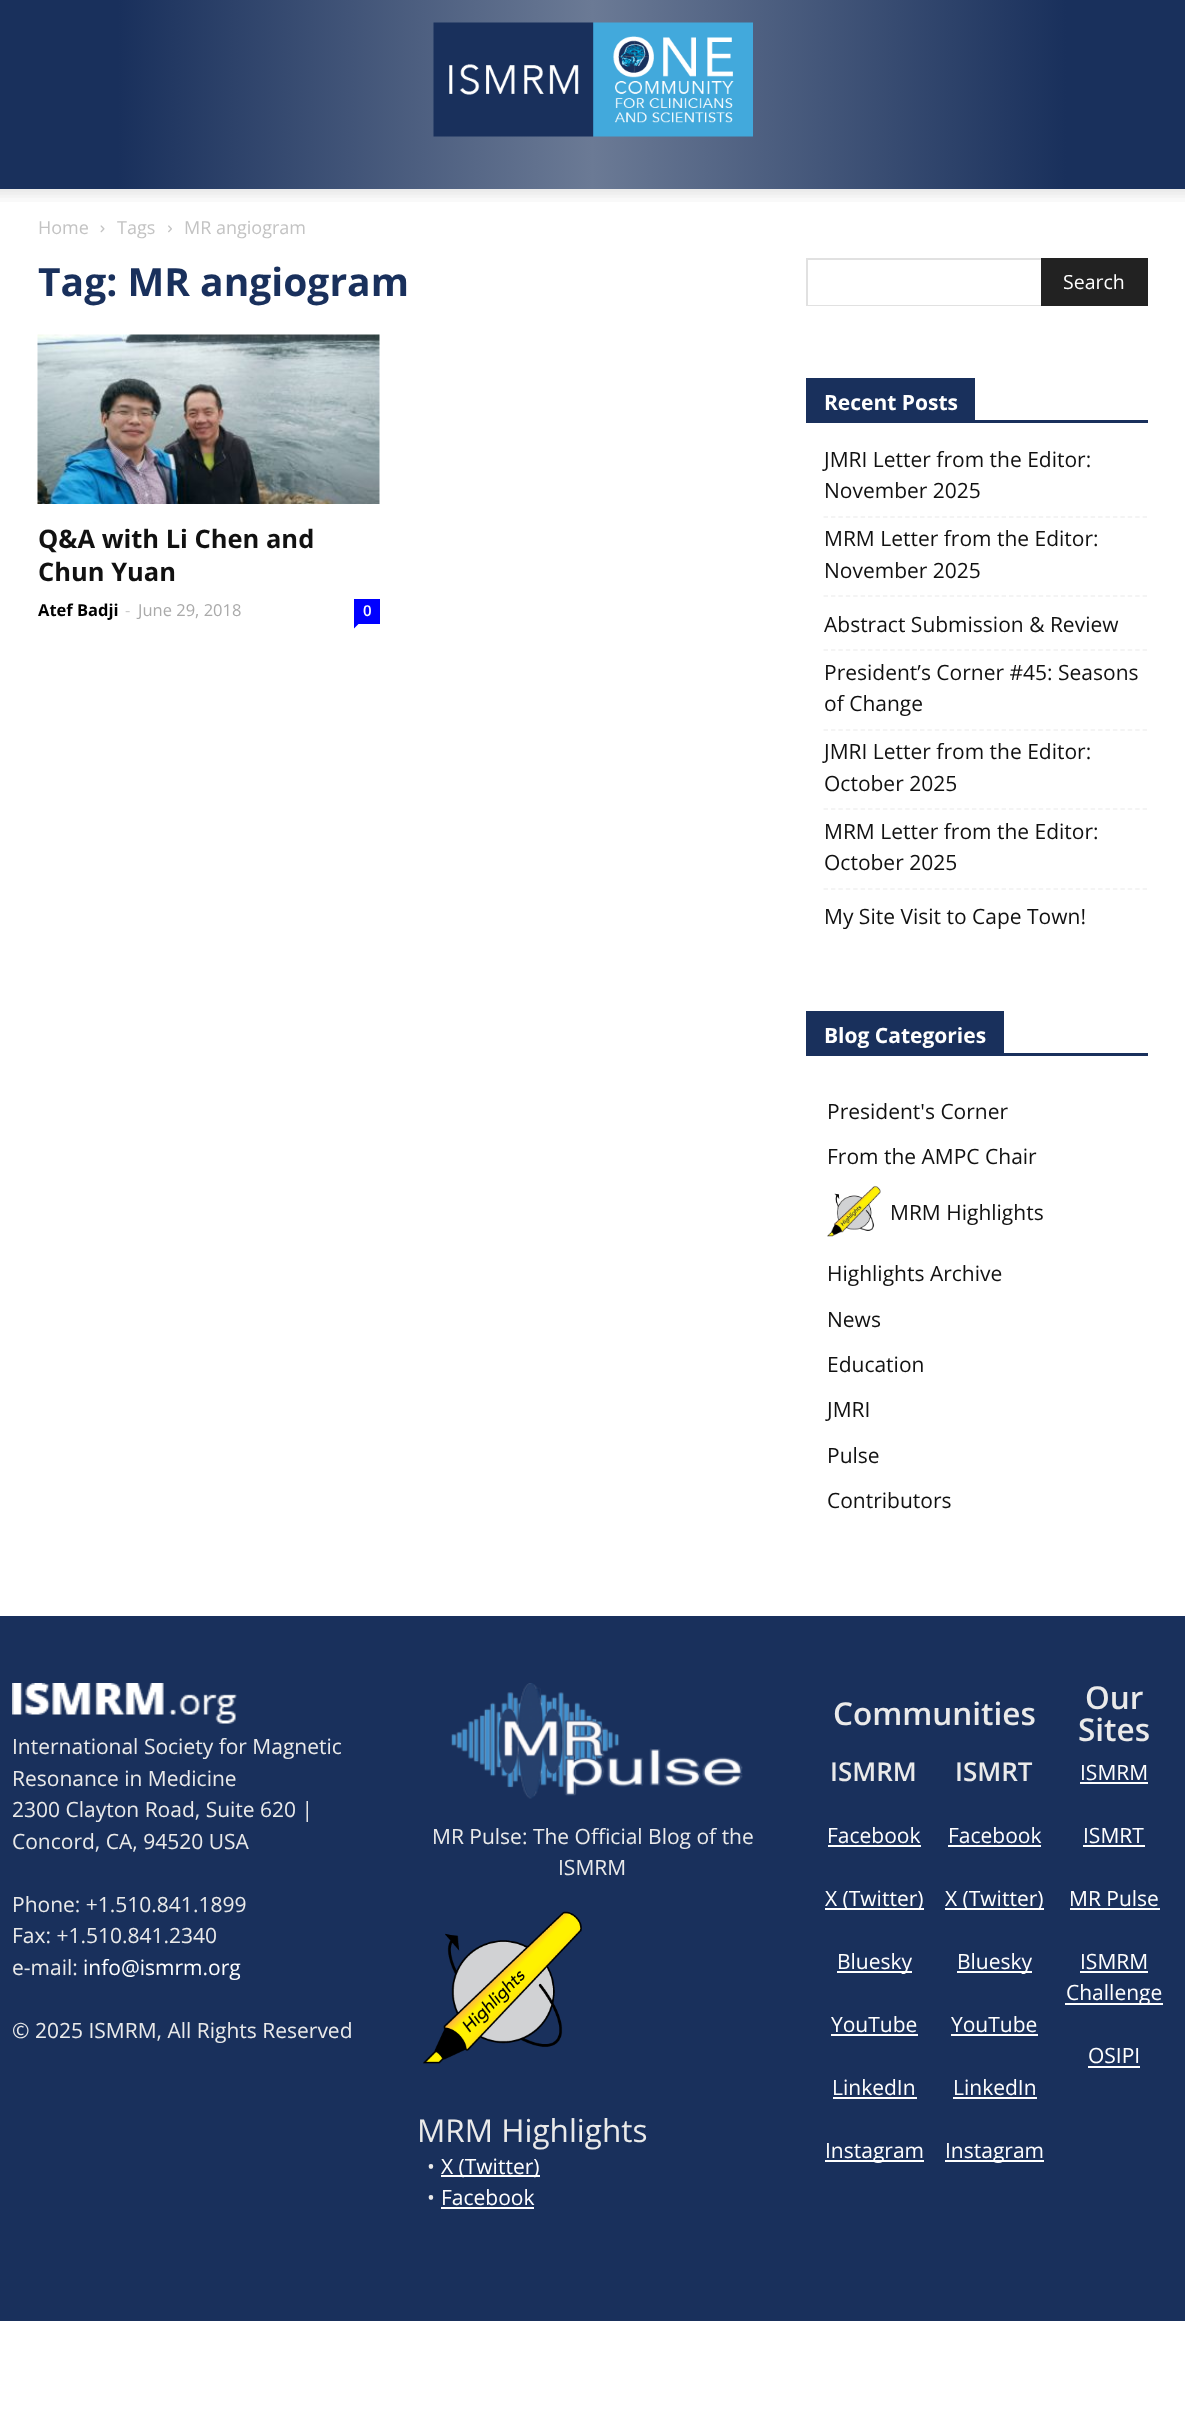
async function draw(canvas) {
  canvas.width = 1185
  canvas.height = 2414
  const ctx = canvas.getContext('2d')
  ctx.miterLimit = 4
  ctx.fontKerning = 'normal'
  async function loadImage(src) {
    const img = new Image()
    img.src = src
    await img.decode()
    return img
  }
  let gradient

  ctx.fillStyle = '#fff'
  ctx.fillRect(0, 0, 1185, 2414)
  gradient = ctx.createLinearGradient(1185, 71, 0, 70)
  gradient.addColorStop(0.1, '#19305c')
  gradient.addColorStop(0.5, '#6b7a95')
  gradient.addColorStop(0.9, '#19305c')
  ctx.fillStyle = gradient
  ctx.fillRect(0, 0, 1185, 141)
  ctx.drawImage(await loadImage('image0.png'), 433, 22, 320, 115)
  gradient = ctx.createLinearGradient(1185, 165, 0, 165)
  gradient.addColorStop(0.1, '#19305c')
  gradient.addColorStop(0.5, '#6b7a95')
  gradient.addColorStop(0.9, '#19305c')
  ctx.fillStyle = gradient
  ctx.fillRect(0, 141, 1185, 48)
  ctx.drawImage(await loadImage('image1.png'), 0, 189, 1185, 13)
  ctx.font = '18px Open Sans'
  ctx.fillStyle = '#c3c3c3'
  ctx.fillText('Home', 38, 234)
  ctx.drawImage(await loadImage('image2.png'), 100, 225, 5, 8)
  ctx.fillText('Tags', 117, 234)
  ctx.drawImage(await loadImage('image3.png'), 168, 225, 4, 8)
  ctx.fillText('MR angiogram', 184, 234)
  ctx.font = 'bold 39px Open Sans'
  ctx.fillStyle = '#19305c'
  ctx.fillText('Tag: MR angiogram', 38, 296)
  ctx.drawImage(await loadImage('image4.png'), 37, 334, 343, 170)
  ctx.font = 'bold 25.5px Open Sans'
  ctx.fillStyle = '#111'
  ctx.fillText('Q&A with Li Chen and', 38, 548)
  ctx.fillText('Chun Yuan', 38, 581)
  ctx.font = 'bold 16.5px Open Sans'
  ctx.fillStyle = '#000'
  ctx.fillText('Atef Badji', 38, 616)
  ctx.font = '16.5px Open Sans'
  ctx.fillStyle = '#ccc'
  ctx.fillText('-', 125, 616)
  ctx.fillStyle = '#aaa'
  ctx.fillText('June 29, 2018', 138, 616)
  ctx.fillStyle = '#00f'
  ctx.fillRect(354, 599, 26, 25)
  ctx.font = '600 15px Open Sans'
  ctx.fillStyle = '#fff'
  ctx.fillText('0', 363, 616)
  ctx.fillStyle = '#00f'
  ctx.beginPath()
  ctx.moveTo(354, 624)
  ctx.lineTo(358.5, 624)
  ctx.lineTo(354, 628.5)
  ctx.closePath()
  ctx.fill()
  ctx.fillStyle = '#e1e1e1'
  ctx.fillRect(806, 258, 235, 2)
  ctx.fillRect(806, 305, 235, 1)
  ctx.fillRect(806, 258, 2, 48)
  ctx.fillStyle = '#222'
  ctx.fillRect(1041, 258, 107, 48)
  ctx.font = '19.5px Open Sans'
  ctx.fillStyle = '#fff'
  ctx.fillText('Search', 1063, 289)
  ctx.fillStyle = '#19305c'
  ctx.fillRect(806, 420, 342, 3)
  ctx.fillRect(806, 378, 169, 42)
  ctx.font = 'bold 21px Open Sans'
  ctx.fillStyle = '#fff'
  ctx.fillText('Recent Posts', 824, 410)
  ctx.beginPath()
  ctx.moveTo(823.5, 517)
  ctx.lineTo(1147.5, 517)
  ctx.strokeStyle = '#f1f1f1'
  ctx.lineWidth = 1.5
  ctx.setLineDash([4.5, 2.92])
  ctx.stroke()
  ctx.font = '21px Open Sans'
  ctx.fillStyle = '#111'
  ctx.fillText('JMRI Letter from the Editor:', 824, 467)
  ctx.fillText('November 2025', 824, 498)
  ctx.beginPath()
  ctx.moveTo(823.5, 596)
  ctx.lineTo(1147.5, 596)
  ctx.stroke()
  ctx.fillText('MRM Letter from the Editor:', 824, 546)
  ctx.fillText('November 2025', 824, 578)
  ctx.beginPath()
  ctx.moveTo(823.5, 650)
  ctx.lineTo(1147.5, 650)
  ctx.stroke()
  ctx.fillText('Abstract Submission & Review', 824, 632)
  ctx.beginPath()
  ctx.moveTo(823.5, 730)
  ctx.lineTo(1147.5, 730)
  ctx.stroke()
  ctx.fillText('President’s Corner #45: Seasons', 824, 680)
  ctx.fillText('of Change', 824, 711)
  ctx.beginPath()
  ctx.moveTo(823.5, 809)
  ctx.lineTo(1147.5, 809)
  ctx.stroke()
  ctx.fillText('JMRI Letter from the Editor:', 824, 759)
  ctx.fillText('October 2025', 824, 791)
  ctx.beginPath()
  ctx.moveTo(823.5, 889)
  ctx.lineTo(1147.5, 889)
  ctx.stroke()
  ctx.fillText('MRM Letter from the Editor:', 824, 839)
  ctx.fillText('October 2025', 824, 870)
  ctx.fillText('My Site Visit to Cape Town!', 824, 924)
  ctx.fillStyle = '#19305c'
  ctx.fillRect(806, 1053, 342, 3)
  ctx.fillRect(806, 1011, 198, 42)
  ctx.font = 'bold 21px Open Sans'
  ctx.fillStyle = '#fff'
  ctx.fillText('Blog Categories', 824, 1043)
  ctx.font = '21px Open Sans'
  ctx.fillStyle = '#111'
  ctx.fillText('President\'s Corner', 827, 1119)
  ctx.fillText('From the AMPC Chair', 827, 1164)
  ctx.drawImage(await loadImage('image5.png'), 827, 1185, 54, 52)
  ctx.fillText('MRM Highlights', 890, 1220)
  ctx.fillText('Highlights Archive', 827, 1281)
  ctx.fillText('News', 827, 1327)
  ctx.fillText('Education', 827, 1372)
  ctx.fillText('JMRI', 827, 1417)
  ctx.fillText('Pulse', 827, 1463)
  ctx.fillText('Contributors', 827, 1508)
  ctx.fillStyle = '#19305c'
  ctx.fillRect(0, 1616, 1185, 705)
  ctx.drawImage(await loadImage('image6.png'), 12, 1683, 225, 41)
  ctx.fillStyle = '#eaeaea'
  ctx.fillText('International Society for Magnetic', 12, 1754)
  ctx.fillText('Resonance in Medicine', 12, 1786)
  ctx.fillText('2300 Clayton Road, Suite 620 |', 12, 1817)
  ctx.fillText('Concord, CA, 94520 USA', 12, 1849)
  ctx.fillText('Phone: +1.510.841.1899', 12, 1912)
  ctx.fillText('Fax: +1.510.841.2340', 12, 1943)
  ctx.fillText('e-mail:', 12, 1975)
  ctx.fillStyle = '#fff'
  ctx.fillText('info@ismrm.org', 83, 1975)
  ctx.fillStyle = '#eaeaea'
  ctx.fillText('© 2025 ISMRM, All Rights Reserved', 12, 2038)
  ctx.drawImage(await loadImage('image7.png'), 451, 1683, 292, 116)
  ctx.fillText('MR Pulse: The Official Blog of the', 432, 1844)
  ctx.fillText('ISMRM', 558, 1875)
  ctx.drawImage(await loadImage('image8.png'), 423, 1911, 159, 153)
  ctx.font = '31.5px Open Sans'
  ctx.fillText('MRM Highlights', 417, 2142)
  ctx.font = '21px Open Sans'
  ctx.fillText('•', 427, 2174)
  ctx.fillStyle = '#fff'
  ctx.fillRect(441, 2175, 99, 2)
  ctx.fillText('X (Twitter)', 441, 2174)
  ctx.fillStyle = '#eaeaea'
  ctx.fillText('•', 427, 2205)
  ctx.fillStyle = '#fff'
  ctx.fillText('Facebook', 441, 2205)
  ctx.fillRect(441, 2207, 93, 2)
  ctx.font = '600 31.5px Open Sans'
  ctx.fillStyle = '#eaeaea'
  ctx.fillText('Communities', 833, 1725)
  ctx.fillText('Our', 1085, 1709)
  ctx.fillText('Sites', 1078, 1741)
  ctx.font = '600 26px Open Sans'
  ctx.fillText('ISMRM', 830, 1781)
  ctx.font = '21px Open Sans'
  ctx.fillStyle = '#fff'
  ctx.fillText('Facebook', 827, 1843)
  ctx.fillRect(828, 1845, 93, 2)
  ctx.fillRect(825, 1908, 99, 2)
  ctx.fillText('X (Twitter)', 825, 1906)
  ctx.fillRect(837, 1971, 75, 2)
  ctx.fillText('Bluesky', 837, 1969)
  ctx.fillText('YouTube', 831, 2032)
  ctx.fillRect(831, 2034, 87, 2)
  ctx.fillText('LinkedIn', 832, 2095)
  ctx.fillRect(833, 2097, 84, 2)
  ctx.fillRect(825, 2160, 99, 2)
  ctx.fillText('Instagram', 825, 2158)
  ctx.font = '600 26px Open Sans'
  ctx.fillStyle = '#eaeaea'
  ctx.fillText('ISMRT', 955, 1781)
  ctx.font = '21px Open Sans'
  ctx.fillStyle = '#fff'
  ctx.fillText('Facebook', 948, 1843)
  ctx.fillRect(948, 1845, 93, 2)
  ctx.fillRect(945, 1908, 99, 2)
  ctx.fillText('X (Twitter)', 945, 1906)
  ctx.fillRect(957, 1971, 75, 2)
  ctx.fillText('Bluesky', 957, 1969)
  ctx.fillText('YouTube', 951, 2032)
  ctx.fillRect(951, 2034, 87, 2)
  ctx.fillText('LinkedIn', 953, 2095)
  ctx.fillRect(953, 2097, 84, 2)
  ctx.fillRect(945, 2160, 99, 2)
  ctx.fillText('Instagram', 945, 2158)
  ctx.fillText('ISMRM', 1080, 1780)
  ctx.fillRect(1080, 1782, 68, 2)
  ctx.fillText('ISMRT', 1083, 1843)
  ctx.fillRect(1083, 1845, 62, 2)
  ctx.fillText('MR Pulse', 1069, 1906)
  ctx.fillRect(1070, 1908, 90, 2)
  ctx.fillText('ISMRM', 1080, 1969)
  ctx.fillRect(1080, 1971, 68, 2)
  ctx.fillRect(1065, 2003, 98, 2)
  ctx.fillText('Challenge', 1066, 2000)
  ctx.fillText('OSIPI', 1088, 2063)
  ctx.fillRect(1088, 2066, 52, 2)
}

draw(document.querySelector('canvas'))
